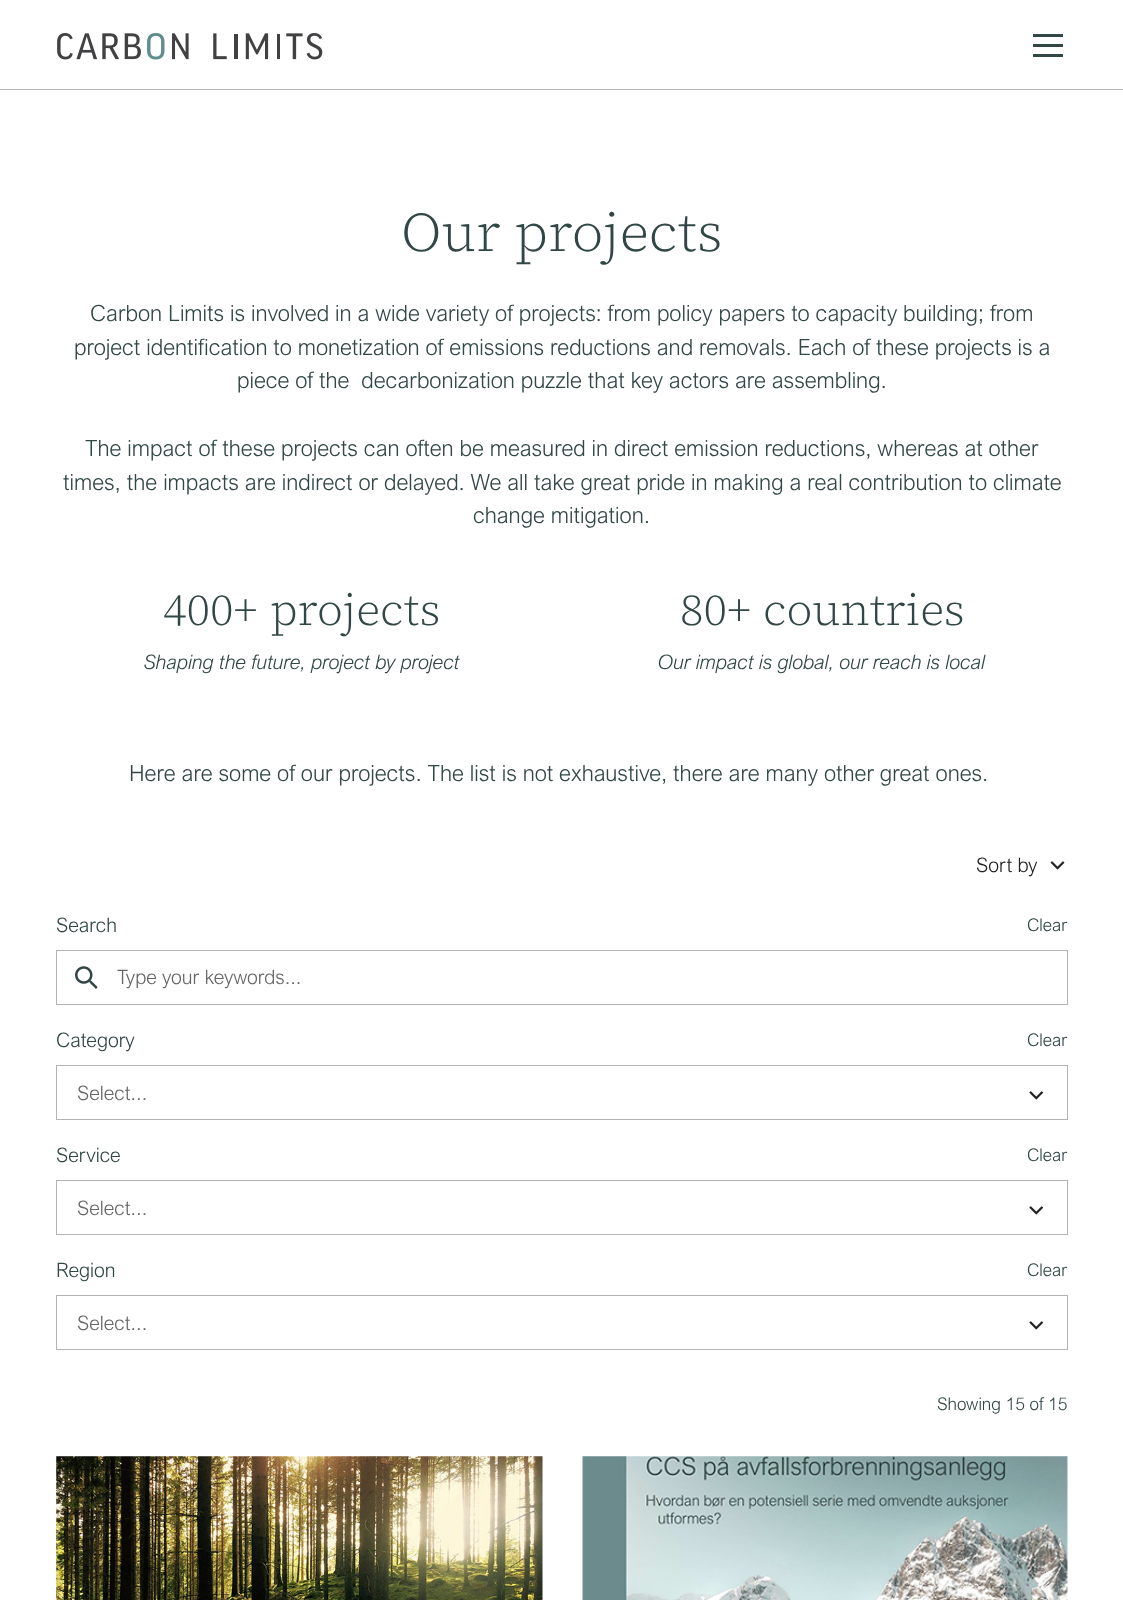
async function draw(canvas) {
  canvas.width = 1123
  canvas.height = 1600
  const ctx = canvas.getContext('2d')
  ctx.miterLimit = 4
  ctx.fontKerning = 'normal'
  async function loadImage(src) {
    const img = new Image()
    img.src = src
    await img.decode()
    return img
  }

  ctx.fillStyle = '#fff'
  ctx.fillRect(0, 0, 1123, 1600)
  ctx.fillStyle = '#b3b3b3'
  ctx.fillRect(0, 89, 1123, 1)
  ctx.drawImage(await loadImage('image0.png'), 57, 33, 266, 27)
  ctx.fillStyle = '#314746'
  ctx.fillRect(1033, 34, 30, 3)
  ctx.fillRect(1033, 44, 30, 3)
  ctx.fillRect(1033, 54, 30, 3)
  ctx.font = '300 55px "Source Serif 4"'
  ctx.fillText('Our projects', 401, 251)
  ctx.font = '300 22.5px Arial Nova'
  ctx.fillText('Carbon Limits is involved in a wide variety of projects: from policy papers to capacity building; from', 90, 321)
  ctx.fillText('project identification to monetization of emissions reductions and removals. Each of these projects is a', 74, 355)
  ctx.fillText('piece of the  decarbonization puzzle that key actors are assembling.', 237, 388)
  ctx.fillText('The impact of these projects can often be measured in direct emission reductions, whereas at other', 85, 456)
  ctx.fillText('times, the impacts are indirect or delayed. We all take great pride in making a real contribution to climate', 63, 490)
  ctx.fillText('change mitigation.', 473, 523)
  ctx.font = '300 45px "Source Serif 4"'
  ctx.fillText('400+', 163, 625)
  ctx.fillText('projects', 270, 625)
  ctx.font = 'italic 300 20px Arial Nova'
  ctx.fillText('Shaping the future, project by project', 144, 669)
  ctx.font = '300 45px "Source Serif 4"'
  ctx.fillText('80+', 680, 625)
  ctx.fillText('countries', 763, 625)
  ctx.font = 'italic 300 20px Arial Nova'
  ctx.fillText('Our impact is global, our reach is local', 658, 669)
  ctx.font = '300 22.5px Arial Nova'
  ctx.fillText('Here are some of our projects. The list is not exhaustive, there are many other great ones.', 129, 781)
  ctx.font = '300 20px Arial Nova'
  ctx.fillStyle = '#222'
  ctx.fillText('Sort by', 976, 872)
  ctx.drawImage(await loadImage('image1.png'), 1050, 861, 15, 9)
  ctx.fillStyle = '#314746'
  ctx.fillText('Search', 56, 932)
  ctx.font = '300 17.5px Arial Nova'
  ctx.fillText('Clear', 1027, 931)
  ctx.strokeStyle = '#b3b3b3'
  ctx.strokeRect(56.5, 950.5, 1011, 54)
  ctx.drawImage(await loadImage('image2.png'), 75, 966, 23, 23)
  ctx.font = '300 20px Arial Nova'
  ctx.fillStyle = '#666'
  ctx.fillText('Type your keywords...', 117, 984)
  ctx.fillStyle = '#314746'
  ctx.fillText('Category', 56, 1047)
  ctx.font = '300 17.5px Arial Nova'
  ctx.fillText('Clear', 1027, 1046)
  ctx.strokeRect(56.5, 1065.5, 1011, 54)
  ctx.font = '300 20px Arial Nova'
  ctx.fillStyle = '#666'
  ctx.fillText('Select...', 77, 1100)
  ctx.drawImage(await loadImage('image3.png'), 1029, 1091, 15, 9)
  ctx.fillStyle = '#314746'
  ctx.fillText('Service', 56, 1162)
  ctx.font = '300 17.5px Arial Nova'
  ctx.fillText('Clear', 1027, 1161)
  ctx.strokeRect(56.5, 1180.5, 1011, 54)
  ctx.font = '300 20px Arial Nova'
  ctx.fillStyle = '#666'
  ctx.fillText('Select...', 77, 1215)
  ctx.drawImage(await loadImage('image3.png'), 1029, 1206, 15, 9)
  ctx.fillStyle = '#314746'
  ctx.fillText('Region', 56, 1277)
  ctx.font = '300 17.5px Arial Nova'
  ctx.fillText('Clear', 1027, 1276)
  ctx.strokeRect(56.5, 1295.5, 1011, 54)
  ctx.font = '300 20px Arial Nova'
  ctx.fillStyle = '#666'
  ctx.fillText('Select...', 77, 1330)
  ctx.drawImage(await loadImage('image3.png'), 1029, 1321, 15, 9)
  ctx.font = '300 17.5px Arial Nova'
  ctx.fillStyle = '#314746'
  ctx.fillText('Showing 15 of 15', 937, 1410)
  ctx.drawImage(await loadImage('image4.png'), 56, 1456, 487, 144)
  ctx.drawImage(await loadImage('image5.png'), 582, 1456, 486, 144)
}

draw(document.querySelector('canvas'))
